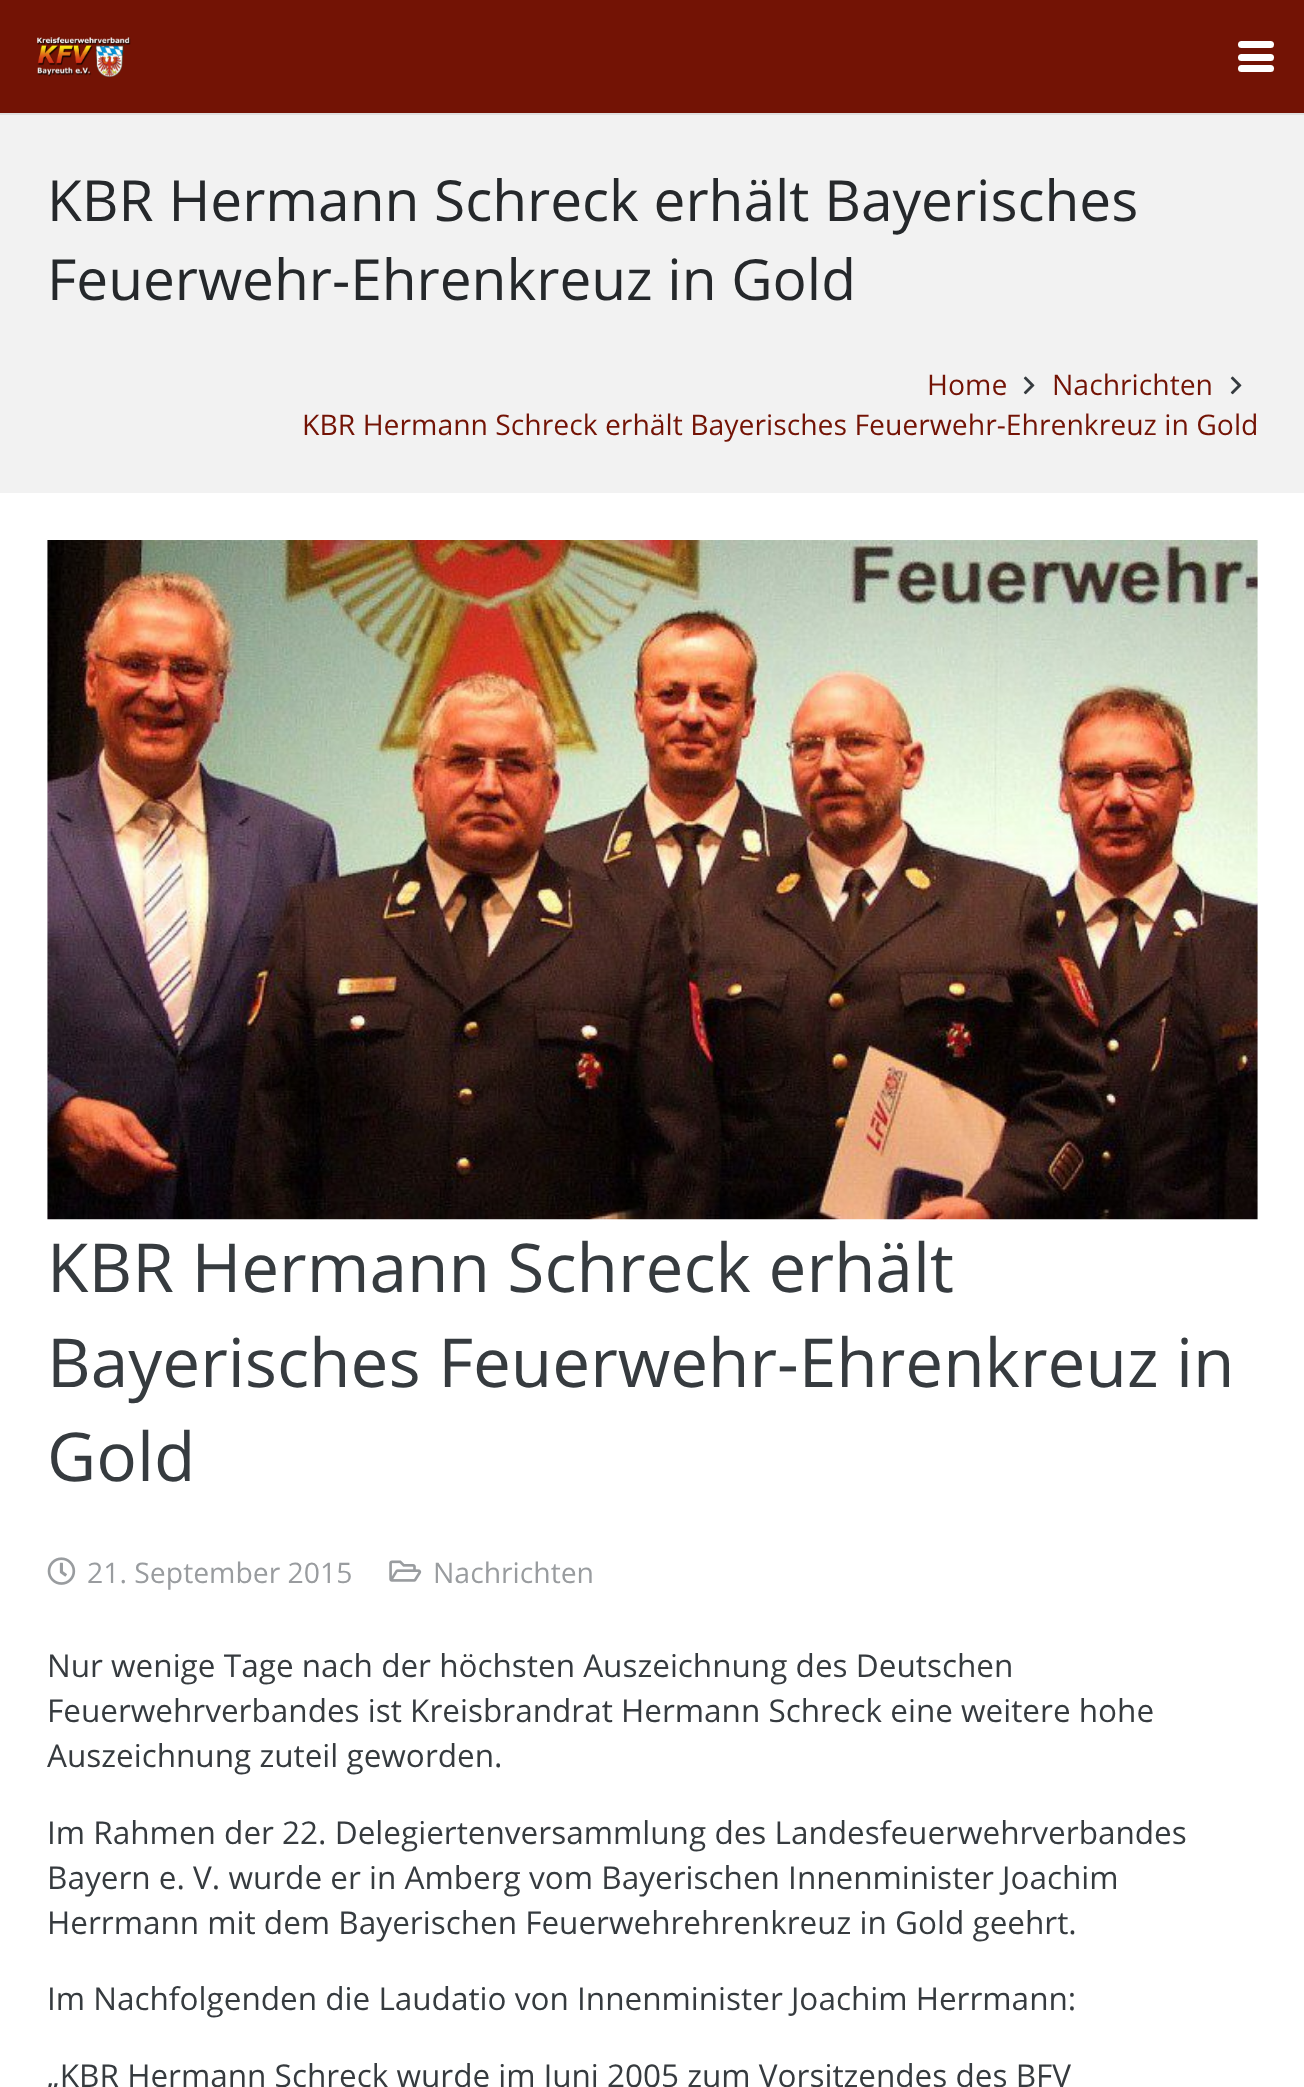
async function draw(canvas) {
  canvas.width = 1304
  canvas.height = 2087
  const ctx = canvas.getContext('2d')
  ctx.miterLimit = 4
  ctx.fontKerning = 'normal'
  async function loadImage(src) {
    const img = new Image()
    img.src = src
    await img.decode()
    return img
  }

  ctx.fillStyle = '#fff'
  ctx.fillRect(0, 0, 1304, 2087)
  ctx.fillStyle = '#dfdfdf'
  ctx.fillRect(0, 113, 1304, 2)
  ctx.fillStyle = '#731305'
  ctx.fillRect(0, 0, 1304, 113)
  ctx.drawImage(await loadImage('image0.png'), 37, 37, 94, 41)
  ctx.fillStyle = '#fff'
  ctx.beginPath()
  ctx.roundRect(1238, 54, 36, 7, 3.5)
  ctx.fill()
  ctx.beginPath()
  ctx.roundRect(1238, 41, 36, 7, 3.5)
  ctx.fill()
  ctx.beginPath()
  ctx.roundRect(1238, 65, 36, 7, 3.5)
  ctx.fill()
  ctx.fillStyle = '#f2f2f2'
  ctx.fillRect(0, 115, 1304, 378)
  ctx.font = '56.75px Open Sans'
  ctx.fillStyle = '#25282b'
  ctx.fillText('KBR Hermann Schreck erhält Bayerisches', 47, 221)
  ctx.fillText('Feuerwehr-Ehrenkreuz in Gold', 47, 300)
  ctx.font = '28.35px Open Sans'
  ctx.fillStyle = '#731305'
  ctx.fillText('Home', 927, 395)
  ctx.drawImage(await loadImage('image1.png'), 1023, 376, 12, 19)
  ctx.fillText('Nachrichten', 1052, 395)
  ctx.drawImage(await loadImage('image1.png'), 1230, 376, 12, 19)
  ctx.fillText('KBR Hermann Schreck erhält Bayerisches Feuerwehr-Ehrenkreuz in Gold', 302, 435)
  ctx.drawImage(await loadImage('image2.png'), 47, 540, 1211, 680)
  ctx.font = '67.5px Open Sans'
  ctx.fillStyle = '#363b3f'
  ctx.fillText('KBR Hermann Schreck erhält', 47, 1292)
  ctx.fillText('Bayerisches Feuerwehr-Ehrenkreuz in', 47, 1387)
  ctx.fillText('Gold', 47, 1481)
  ctx.drawImage(await loadImage('image3.png'), 47, 1557, 29, 28)
  ctx.font = '28.35px Open Sans'
  ctx.fillStyle = '#999c9f'
  ctx.fillText('21. September 2015', 87, 1583)
  ctx.drawImage(await loadImage('image4.png'), 389, 1560, 33, 22)
  ctx.fillText('Nachrichten', 433, 1583)
  ctx.font = '31.5px Open Sans'
  ctx.fillStyle = '#363b3f'
  ctx.fillText('Nur wenige Tage nach der höchsten Auszeichnung des Deutschen', 47, 1677)
  ctx.fillText('Feuerwehrverbandes ist Kreisbrandrat Hermann Schreck eine weitere hohe', 47, 1722)
  ctx.fillText('Auszeichnung zuteil geworden.', 47, 1767)
  ctx.fillText('Im Rahmen der 22. Delegiertenversammlung des Landesfeuerwehrverbandes', 47, 1844)
  ctx.fillText('Bayern e. V. wurde er in Amberg vom Bayerischen Innenminister Joachim', 47, 1889)
  ctx.fillText('Herrmann mit dem Bayerischen Feuerwehrehrenkreuz in Gold geehrt.', 47, 1934)
  ctx.fillText('Im Nachfolgenden die Laudatio von Innenminister Joachim Herrmann:', 47, 2010)
  ctx.fillText('„KBR Hermann Schreck wurde im Juni 2005 zum Vorsitzendes des BFV', 47, 2087)
}

draw(document.querySelector('canvas'))
